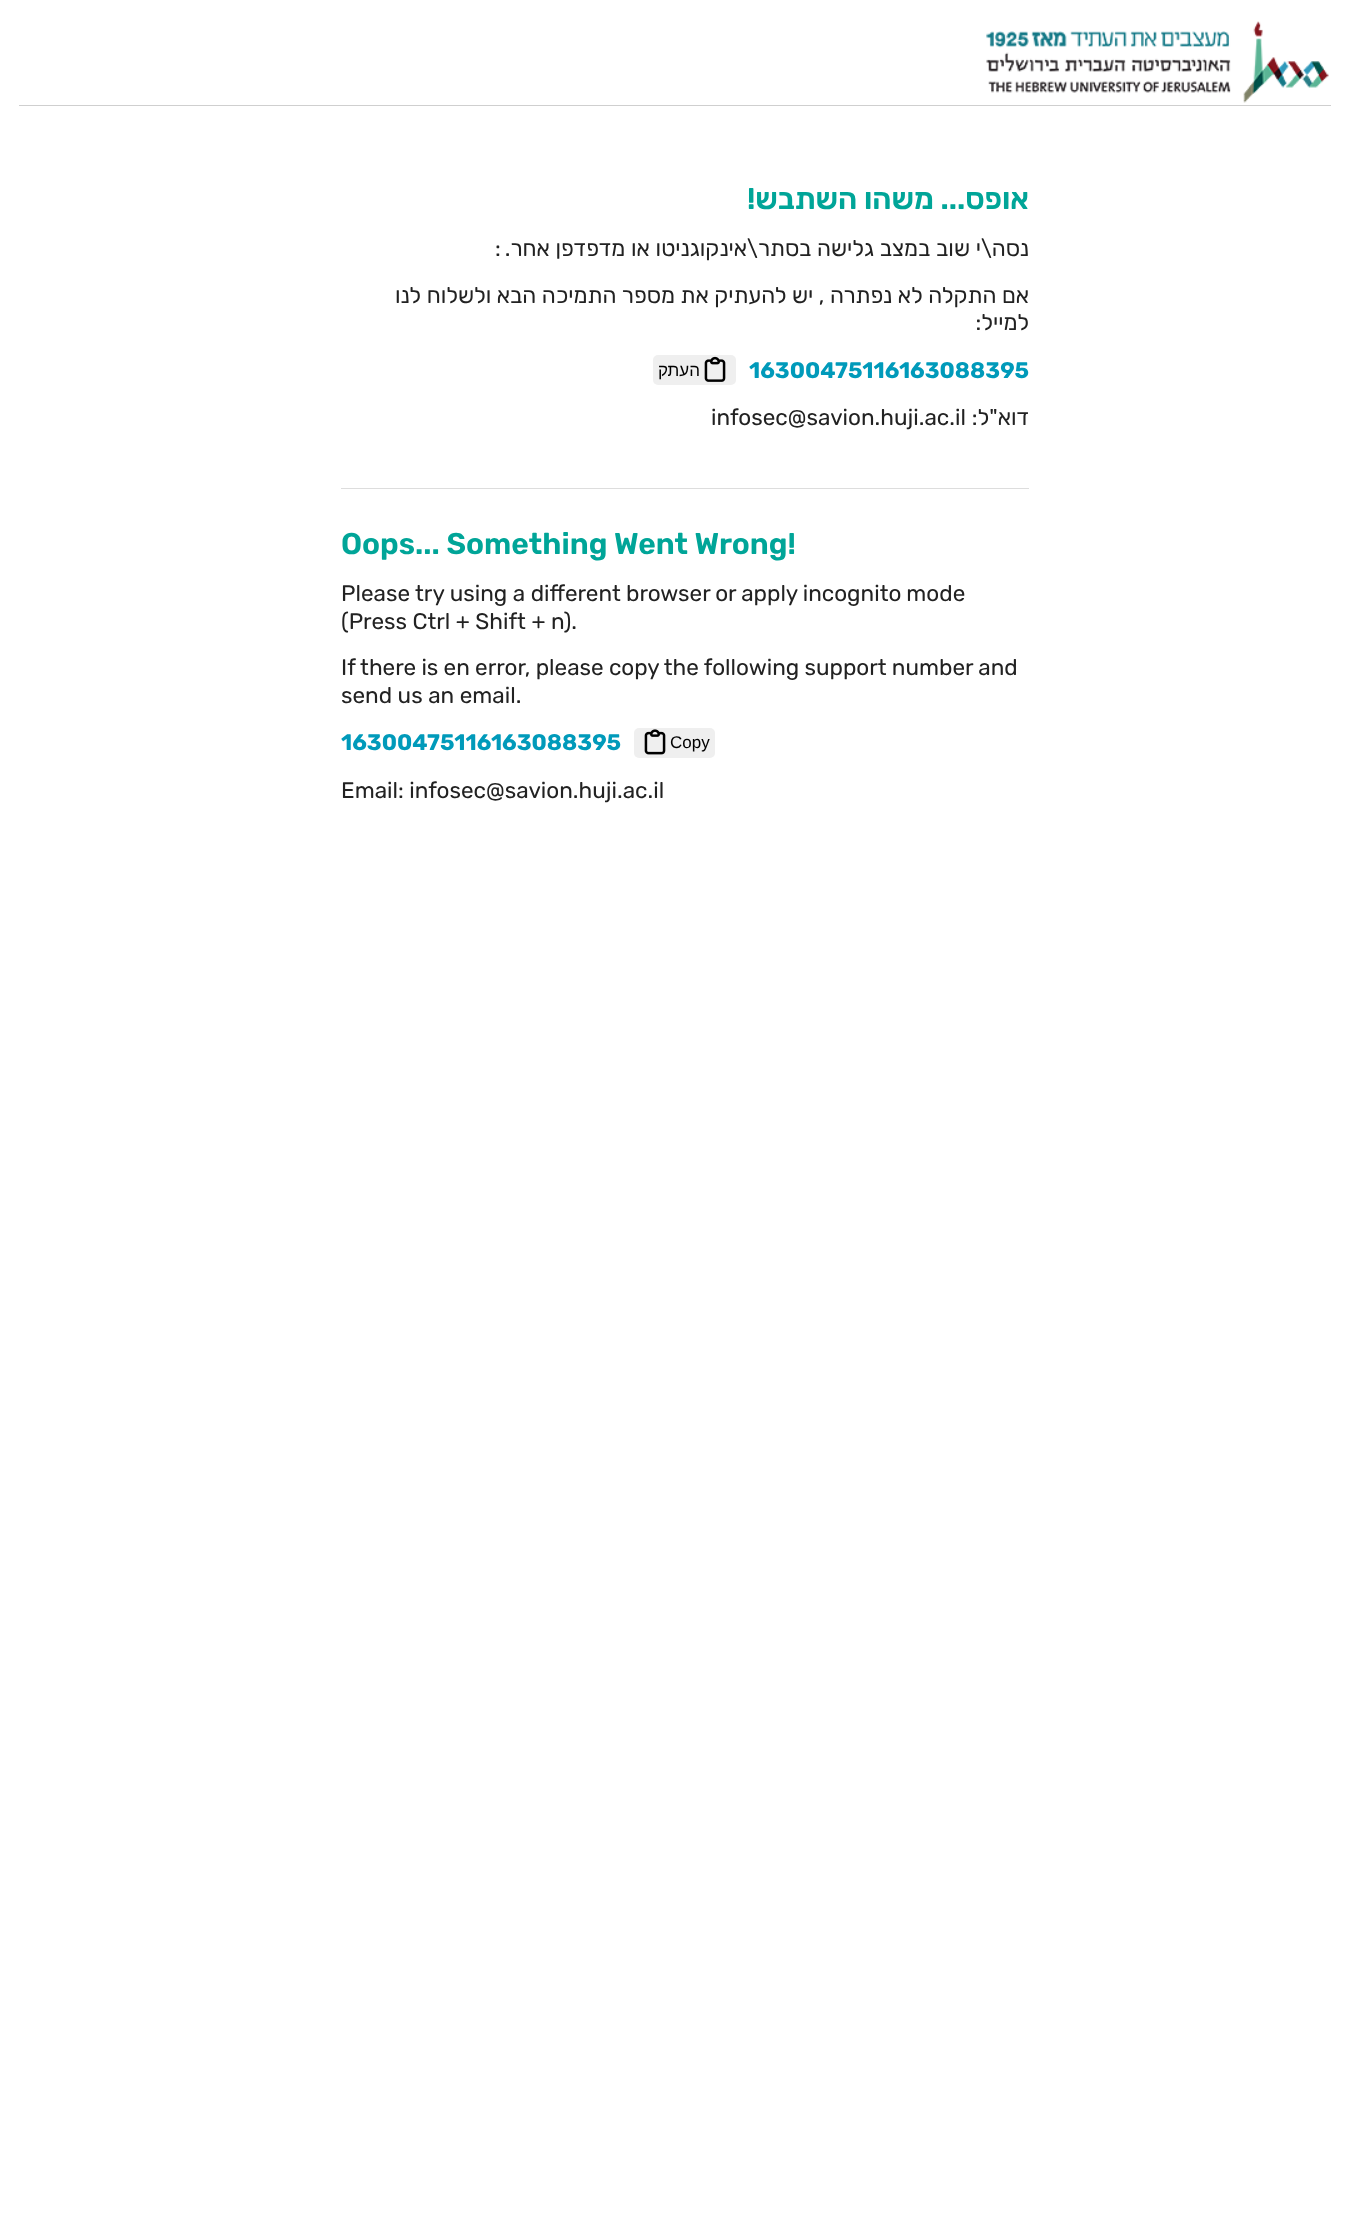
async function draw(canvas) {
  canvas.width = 1350
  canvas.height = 2228
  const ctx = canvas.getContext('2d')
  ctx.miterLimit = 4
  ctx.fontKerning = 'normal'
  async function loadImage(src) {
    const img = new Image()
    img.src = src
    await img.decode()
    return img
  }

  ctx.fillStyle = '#fff'
  ctx.fillRect(0, 0, 1350, 2228)
  ctx.fillStyle = '#cfcfcf'
  ctx.fillRect(19, 105, 1312, 1)
  ctx.drawImage(await loadImage('image0.png'), 986, 21, 343, 82)
  ctx.fillStyle = '#ddd'
  ctx.fillRect(341, 488, 688, 1)
  ctx.direction = 'rtl'
  ctx.font = '600 30px Rubik'
  ctx.fillStyle = '#00a598'
  ctx.fillText('אופס... משהו השתבש!', 1029, 209)
  ctx.direction = 'ltr'
  ctx.font = '22.5px Rubik'
  ctx.fillStyle = '#222'
  ctx.fillText(':', 495, 256)
  ctx.wordSpacing = '0.25px'
  ctx.direction = 'rtl'
  ctx.fillText('נסה\\י שוב במצב גלישה בסתר\\אינקוגניטו או מדפדפן אחר.', 1029, 256)
  ctx.wordSpacing = '0px'
  ctx.fillText('אם התקלה לא נפתרה , יש להעתיק את מספר התמיכה הבא ולשלוח לנו', 1029, 303)
  ctx.fillText('למייל:', 1029, 330)
  ctx.fillStyle = '#efefef'
  ctx.beginPath()
  ctx.roundRect(653, 355, 83, 30, 5)
  ctx.fill()
  ctx.font = '17px Liberation Sans'
  ctx.fillStyle = '#000'
  ctx.fillText('העתק', 700, 376)
  ctx.drawImage(await loadImage('image1.png'), 704, 356, 22, 26)
  ctx.direction = 'ltr'
  ctx.font = 'bold 22.5px Rubik'
  ctx.fillStyle = '#009aba'
  ctx.fillText('16300475116163088395', 749, 378)
  ctx.font = '22.5px Rubik'
  ctx.fillStyle = '#222'
  ctx.fillText('infosec@savion.huji.ac.il', 711, 425)
  ctx.direction = 'rtl'
  ctx.fillText('דוא"ל:', 1029, 425)
  ctx.direction = 'ltr'
  ctx.font = '600 30px Rubik'
  ctx.fillStyle = '#00a598'
  ctx.fillText('Oops... Something Went Wrong!', 341, 554)
  ctx.font = '22.5px Rubik'
  ctx.fillStyle = '#222'
  ctx.fillText('Please try using a different', 341, 601)
  ctx.wordSpacing = '-0.5px'
  ctx.fillText('browser or apply incognito mode', 626, 601)
  ctx.wordSpacing = '0px'
  ctx.fillText('(Press Ctrl + Shift + n).', 341, 629)
  ctx.wordSpacing = '-0.25px'
  ctx.fillText('If there is en error, please copy the following support number and', 341, 675)
  ctx.wordSpacing = '0px'
  ctx.fillText('send us an email.', 341, 703)
  ctx.font = 'bold 22.5px Rubik'
  ctx.fillStyle = '#009aba'
  ctx.fillText('16300475116163088395', 341, 750)
  ctx.fillStyle = '#efefef'
  ctx.beginPath()
  ctx.roundRect(634, 728, 81, 30, 5)
  ctx.fill()
  ctx.drawImage(await loadImage('image2.png'), 644, 729, 22, 26)
  ctx.font = '17px Liberation Sans'
  ctx.fillStyle = '#000'
  ctx.fillText('Copy', 670, 748)
  ctx.font = '22.5px Rubik'
  ctx.fillStyle = '#222'
  ctx.fillText('Email: infosec@savion.huji.ac.il', 341, 798)
}

draw(document.querySelector('canvas'))
